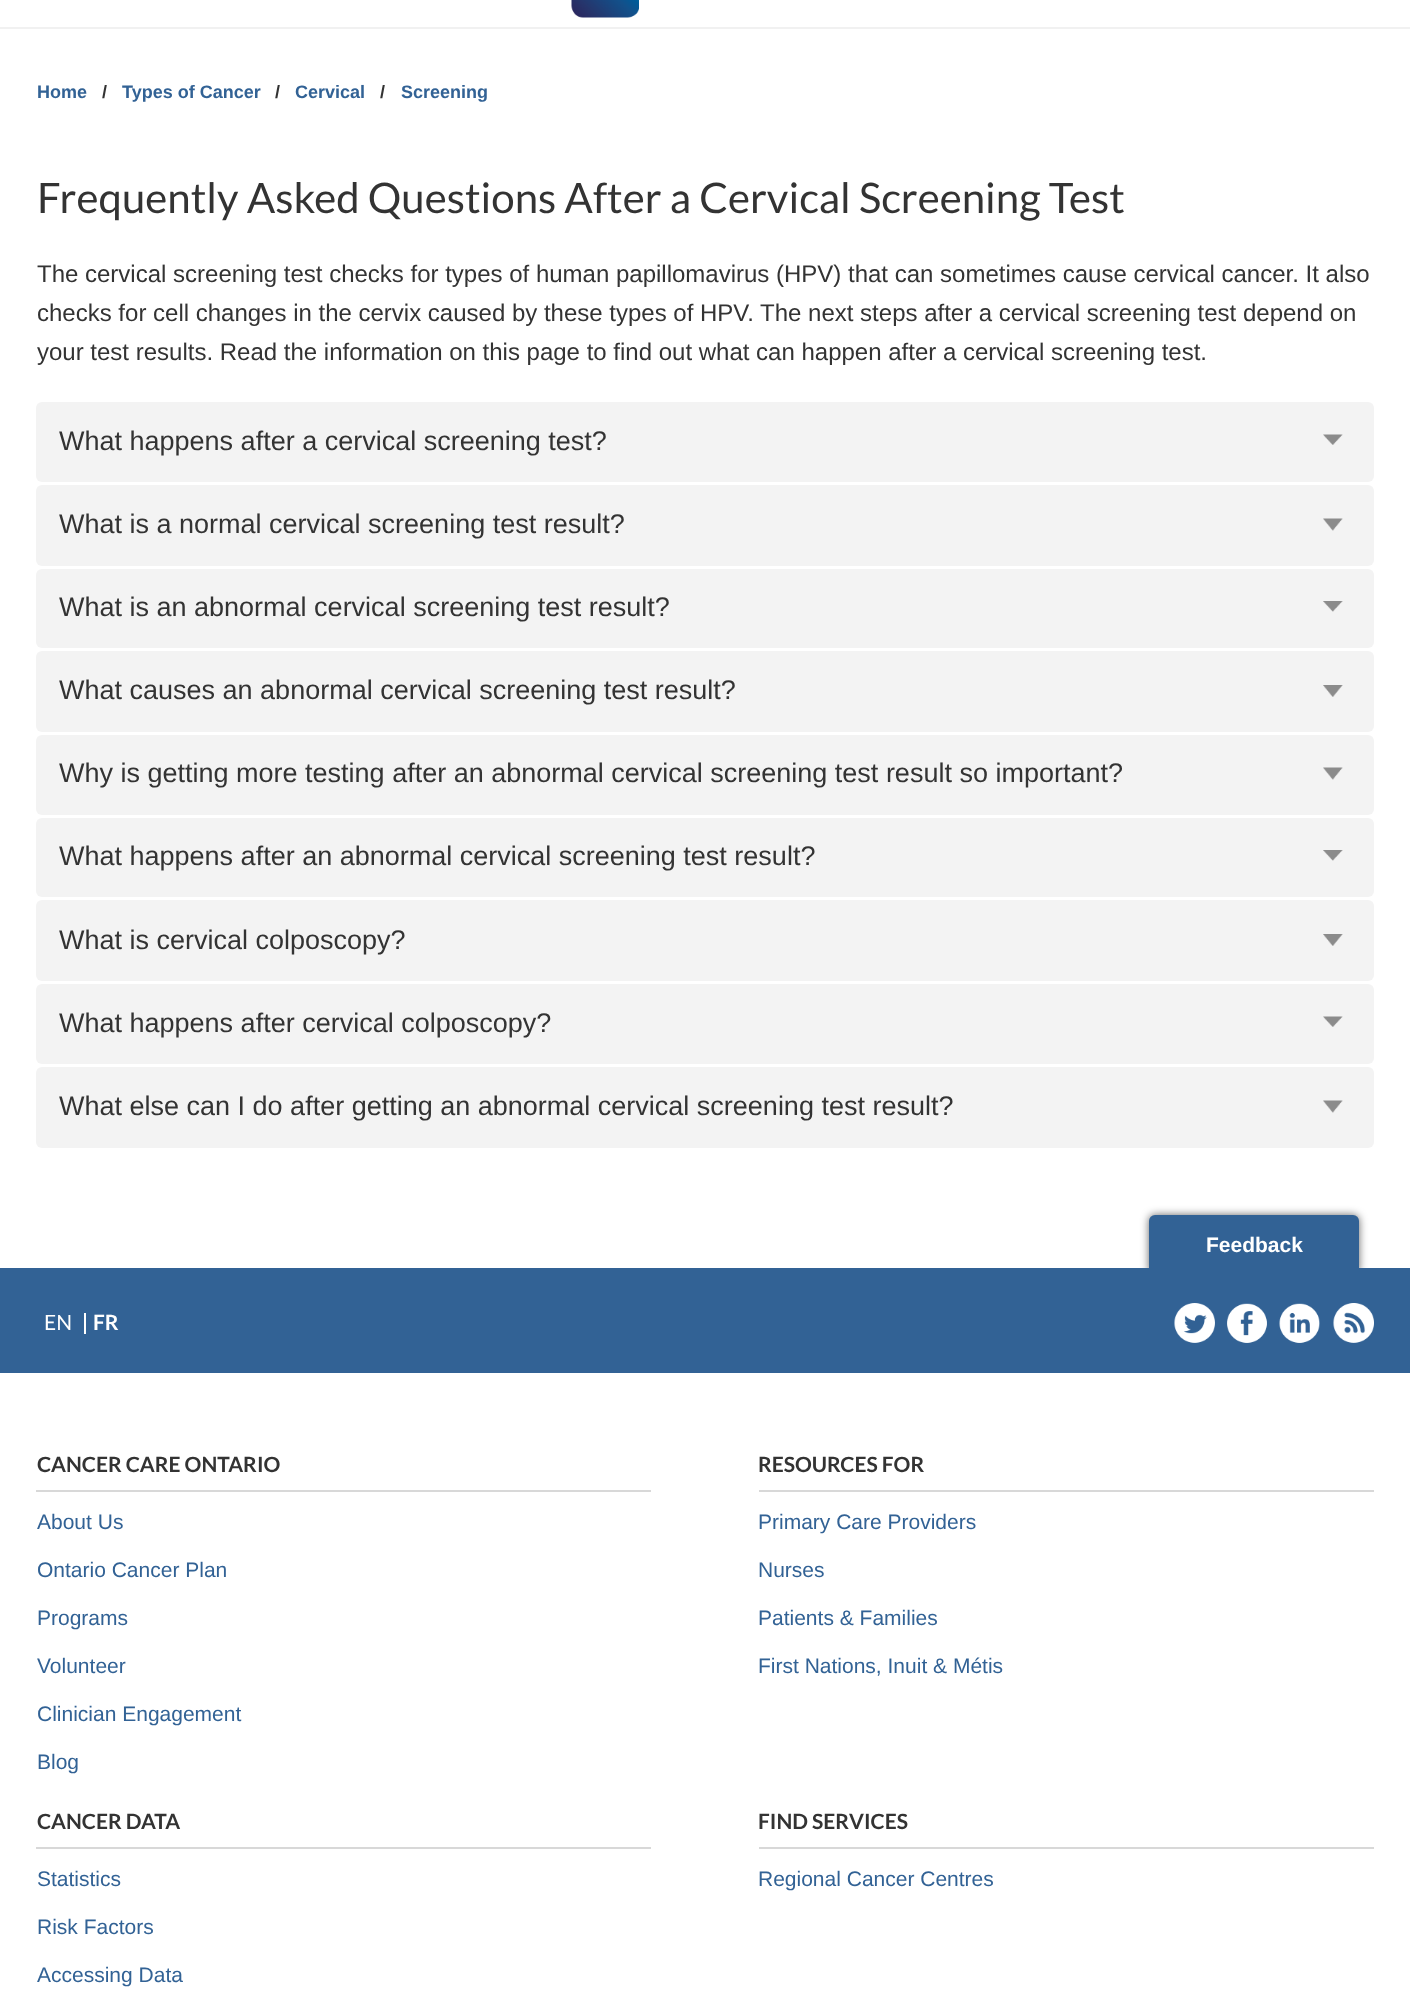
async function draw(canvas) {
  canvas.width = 1410
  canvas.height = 2001
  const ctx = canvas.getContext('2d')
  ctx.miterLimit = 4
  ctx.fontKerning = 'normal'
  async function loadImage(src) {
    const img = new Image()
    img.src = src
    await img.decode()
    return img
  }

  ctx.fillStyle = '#fff'
  ctx.fillRect(0, 0, 1410, 2001)
  ctx.fillStyle = '#f1f1f1'
  ctx.fillRect(0, 27, 1410, 2)
  ctx.drawImage(await loadImage('image0.png'), 571, 0, 68, 18)
  ctx.font = 'bold 18px Liberation Sans'
  ctx.fillStyle = '#326295'
  ctx.fillText('Home', 37, 98)
  ctx.fillStyle = '#333'
  ctx.fillText('/', 102, 98)
  ctx.fillStyle = '#326295'
  ctx.fillText('Types of Cancer', 122, 98)
  ctx.fillStyle = '#333'
  ctx.fillText('/', 275, 98)
  ctx.fillStyle = '#326295'
  ctx.fillText('Cervical', 295, 98)
  ctx.fillStyle = '#333'
  ctx.fillText('/', 380, 98)
  ctx.fillStyle = '#326295'
  ctx.fillText('Screening', 401, 98)
  ctx.font = '42px Lato'
  ctx.fillStyle = '#333'
  ctx.fillText('Frequently Asked Questions After a Cervical Screening Test', 37, 213)
  ctx.font = '24px Liberation Sans'
  ctx.fillText('The cervical screening test checks for types of human papillomavirus (HPV) that can sometimes cause cervical cancer. It also', 37, 282)
  ctx.fillText('checks for cell changes in the cervix caused by these types of HPV. The next steps after a cervical screening test depend on', 37, 321)
  ctx.fillText('your test results. Read the information on this page to find out what can happen after a cervical screening test.', 37, 360)
  ctx.fillStyle = '#f3f3f3'
  ctx.beginPath()
  ctx.roundRect(36, 402, 1338, 80, 6)
  ctx.fill()
  ctx.font = '27px Liberation Sans'
  ctx.fillStyle = '#333'
  ctx.fillText('What happens after a cervical screening test?', 59, 450)
  ctx.drawImage(await loadImage('image1.png'), 1323, 434, 20, 11)
  ctx.fillStyle = '#f3f3f3'
  ctx.beginPath()
  ctx.roundRect(36, 485, 1338, 81, 6)
  ctx.fill()
  ctx.fillStyle = '#333'
  ctx.fillText('What is a normal cervical screening test result?', 59, 533)
  ctx.drawImage(await loadImage('image2.png'), 1323, 518, 20, 13)
  ctx.fillStyle = '#f3f3f3'
  ctx.beginPath()
  ctx.roundRect(36, 569, 1338, 79, 6)
  ctx.fill()
  ctx.fillStyle = '#333'
  ctx.fillText('What is an abnormal cervical screening test result?', 59, 616)
  ctx.drawImage(await loadImage('image3.png'), 1323, 601, 20, 11)
  ctx.fillStyle = '#f3f3f3'
  ctx.beginPath()
  ctx.roundRect(36, 651, 1338, 81, 6)
  ctx.fill()
  ctx.fillStyle = '#333'
  ctx.fillText('What causes an abnormal cervical screening test result?', 59, 699)
  ctx.drawImage(await loadImage('image4.png'), 1323, 685, 20, 12)
  ctx.fillStyle = '#f3f3f3'
  ctx.beginPath()
  ctx.roundRect(36, 735, 1338, 80, 6)
  ctx.fill()
  ctx.fillStyle = '#333'
  ctx.fillText('Why is getting more testing after an abnormal cervical screening test result so important?', 59, 782)
  ctx.drawImage(await loadImage('image2.png'), 1323, 767, 20, 13)
  ctx.fillStyle = '#f3f3f3'
  ctx.beginPath()
  ctx.roundRect(36, 818, 1338, 79, 6)
  ctx.fill()
  ctx.fillStyle = '#333'
  ctx.fillText('What happens after an abnormal cervical screening test result?', 59, 865)
  ctx.drawImage(await loadImage('image3.png'), 1323, 850, 20, 11)
  ctx.fillStyle = '#f3f3f3'
  ctx.beginPath()
  ctx.roundRect(36, 900, 1338, 81, 6)
  ctx.fill()
  ctx.fillStyle = '#333'
  ctx.fillText('What is cervical colposcopy?', 59, 949)
  ctx.drawImage(await loadImage('image4.png'), 1323, 934, 20, 12)
  ctx.fillStyle = '#f3f3f3'
  ctx.beginPath()
  ctx.roundRect(36, 984, 1338, 80, 6)
  ctx.fill()
  ctx.fillStyle = '#333'
  ctx.fillText('What happens after cervical colposcopy?', 59, 1032)
  ctx.drawImage(await loadImage('image1.png'), 1323, 1016, 20, 11)
  ctx.fillStyle = '#f3f3f3'
  ctx.beginPath()
  ctx.roundRect(36, 1067, 1338, 81, 6)
  ctx.fill()
  ctx.fillStyle = '#333'
  ctx.fillText('What else can I do after getting an abnormal cervical screening test result?', 59, 1115)
  ctx.drawImage(await loadImage('image2.png'), 1323, 1100, 20, 13)
  ctx.fillStyle = '#00000099'
  ctx.filter = 'blur(4.5px)'
  ctx.beginPath()
  ctx.roundRect(1149, 1215, 210, 60, 6)
  ctx.fill()
  ctx.filter = 'none'
  ctx.fillStyle = '#326295'
  ctx.beginPath()
  ctx.roundRect(1149, 1215, 210, 60, 6)
  ctx.fill()
  ctx.fillRect(0, 1268, 1410, 105)
  ctx.font = 'bold 21px Liberation Sans'
  ctx.fillStyle = '#fff'
  ctx.fillText('Feedback', 1206, 1252)
  ctx.font = '21px Lato'
  ctx.fillText('EN', 44, 1330)
  ctx.fillRect(84, 1313, 2, 21)
  ctx.font = 'bold 21px Lato'
  ctx.fillText('FR', 93, 1330)
  ctx.drawImage(await loadImage('image5.png'), 1174, 1303, 41, 40)
  ctx.drawImage(await loadImage('image6.png'), 1227, 1303, 40, 40)
  ctx.drawImage(await loadImage('image7.png'), 1279, 1303, 41, 40)
  ctx.drawImage(await loadImage('image8.png'), 1333, 1303, 41, 40)
  ctx.fillStyle = '#d8d8d8'
  ctx.fillRect(36, 1490, 615, 2)
  ctx.fillStyle = '#333'
  ctx.fillText('CANCER CARE ONTARIO', 37, 1472)
  ctx.font = '21px Liberation Sans'
  ctx.fillStyle = '#326295'
  ctx.fillText('About Us', 37, 1529)
  ctx.fillText('Ontario Cancer Plan', 37, 1577)
  ctx.fillText('Programs', 37, 1625)
  ctx.fillText('Volunteer', 37, 1673)
  ctx.fillText('Clinician Engagement', 37, 1721)
  ctx.fillText('Blog', 37, 1769)
  ctx.fillStyle = '#d8d8d8'
  ctx.fillRect(759, 1490, 615, 2)
  ctx.font = 'bold 21px Lato'
  ctx.fillStyle = '#333'
  ctx.fillText('RESOURCES FOR', 758, 1472)
  ctx.font = '21px Liberation Sans'
  ctx.fillStyle = '#326295'
  ctx.fillText('Primary Care Providers', 758, 1529)
  ctx.fillText('Nurses', 758, 1577)
  ctx.fillText('Patients & Families', 758, 1625)
  ctx.fillText('First Nations, Inuit & Métis', 758, 1673)
  ctx.fillStyle = '#d8d8d8'
  ctx.fillRect(36, 1847, 615, 2)
  ctx.font = 'bold 21px Lato'
  ctx.fillStyle = '#333'
  ctx.fillText('CANCER DATA', 37, 1829)
  ctx.font = '21px Liberation Sans'
  ctx.fillStyle = '#326295'
  ctx.fillText('Statistics', 37, 1886)
  ctx.fillText('Risk Factors', 37, 1934)
  ctx.fillText('Accessing Data', 37, 1982)
  ctx.fillStyle = '#d8d8d8'
  ctx.fillRect(759, 1847, 615, 2)
  ctx.font = 'bold 21px Lato'
  ctx.fillStyle = '#333'
  ctx.fillText('FIND SERVICES', 758, 1829)
  ctx.font = '21px Liberation Sans'
  ctx.fillStyle = '#326295'
  ctx.fillText('Regional Cancer Centres', 758, 1886)
}

draw(document.querySelector('canvas'))
